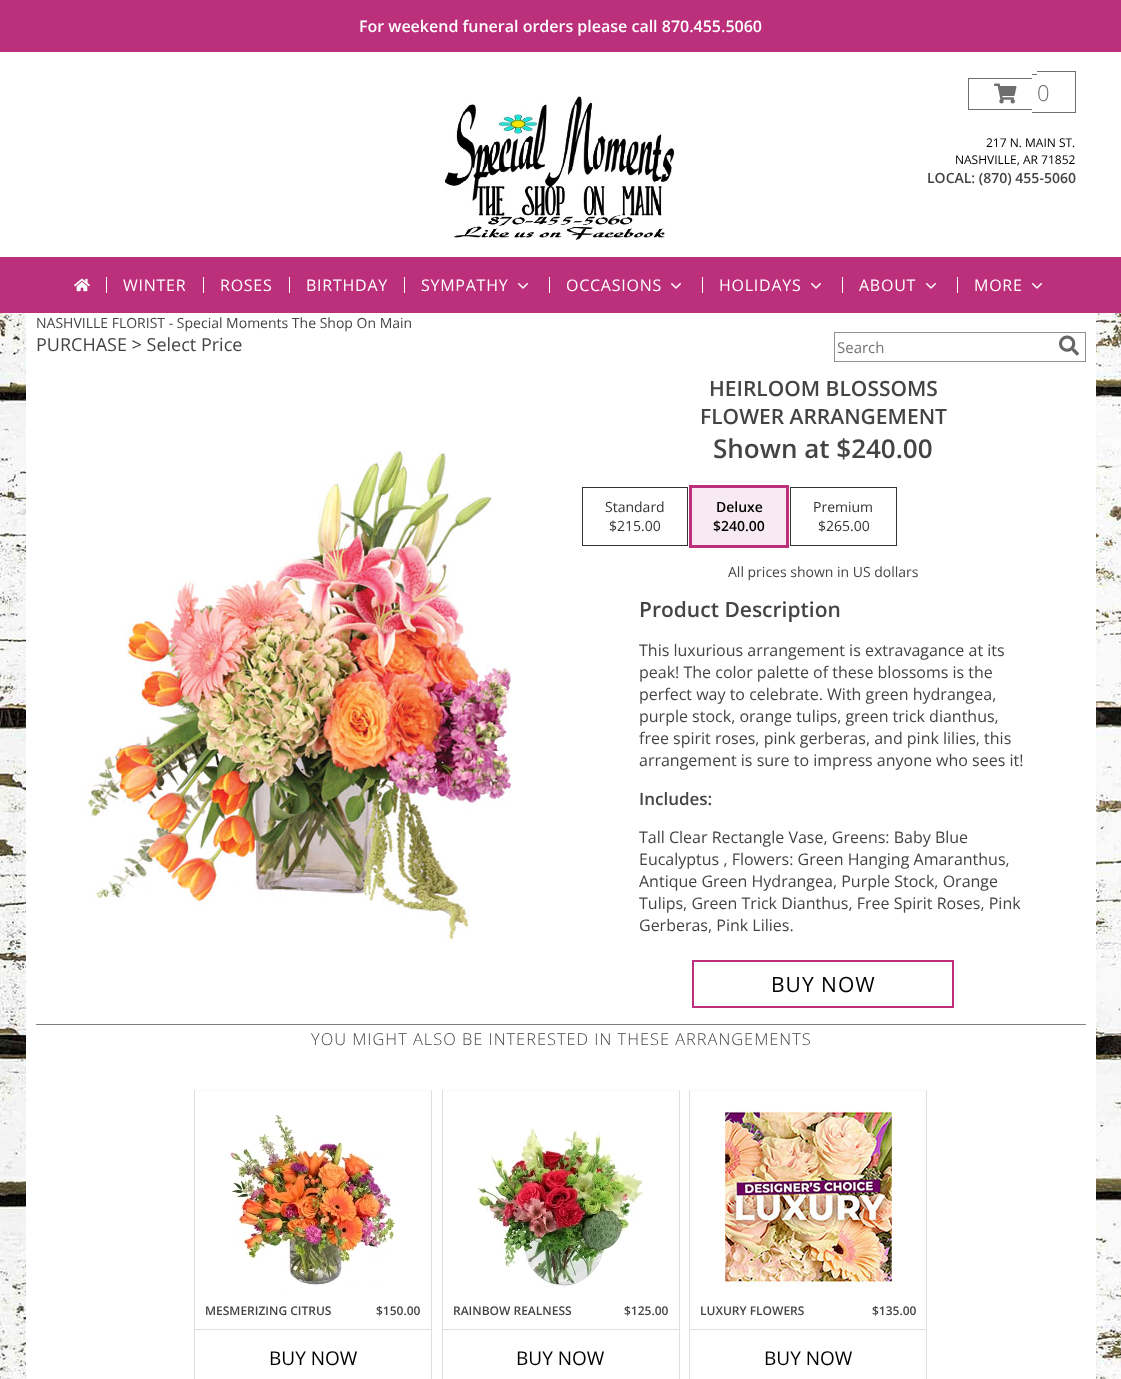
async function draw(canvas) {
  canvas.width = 1121
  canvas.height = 1379
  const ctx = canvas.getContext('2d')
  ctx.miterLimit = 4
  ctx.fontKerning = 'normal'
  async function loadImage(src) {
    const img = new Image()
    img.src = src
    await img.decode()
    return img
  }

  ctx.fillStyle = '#fff'
  ctx.fillRect(0, 0, 1121, 1379)
  ctx.drawImage(await loadImage('image0.png'), 0, 313, 1121, 1066)
  ctx.fillRect(26, 313, 1070, 1066)
  ctx.fillStyle = '#bc2f7b'
  ctx.fillRect(0, 0, 1121, 52)
  ctx.font = '600 16px Open Sans'
  ctx.fillStyle = '#fff'
  ctx.fillText('For weekend funeral orders please call 870.455.5060', 359, 32)
  ctx.drawImage(await loadImage('image1.png'), 445, 96, 230, 144)
  ctx.fillStyle = '#6e6e6e'
  ctx.fillRect(968, 78, 64, 1)
  ctx.fillRect(968, 109, 64, 1)
  ctx.fillRect(968, 78, 1, 32)
  ctx.fillRect(1032, 74, 5, 1)
  ctx.fillRect(1032, 112, 5, 1)
  ctx.fillRect(1037, 71, 39, 1)
  ctx.fillRect(1075, 71, 1, 42)
  ctx.fillRect(1037, 112, 39, 1)
  ctx.drawImage(await loadImage('image2.png'), 994, 83, 23, 21)
  ctx.font = '300 22px Open Sans'
  ctx.fillText('0', 1037, 101)
  ctx.font = '12px Open Sans'
  ctx.fillStyle = '#000'
  ctx.fillText('217 N. MAIN ST.', 986, 147)
  ctx.fillText('NASHVILLE, AR 71852', 955, 164)
  ctx.font = '600 14px Open Sans'
  ctx.fillStyle = '#444'
  ctx.fillText('LOCAL: (870) 455-5060', 927, 183)
  ctx.fillStyle = '#bc2f7b'
  ctx.fillRect(0, 257, 1121, 56)
  ctx.drawImage(await loadImage('image3.png'), 74, 278, 16, 14)
  ctx.fillStyle = '#fff'
  ctx.fillRect(106, 277, 1, 16)
  ctx.letterSpacing = '0.75px'
  ctx.font = '16px Open Sans'
  ctx.fillText('WINTER', 123, 291)
  ctx.fillRect(203, 277, 1, 16)
  ctx.fillText('ROSES', 220, 291)
  ctx.fillRect(289, 277, 1, 16)
  ctx.fillText('BIRTHDAY', 306, 291)
  ctx.fillRect(404, 277, 1, 16)
  ctx.fillText('SYMPATHY', 421, 291)
  ctx.drawImage(await loadImage('image4.png'), 518, 283, 10, 6)
  ctx.fillRect(549, 277, 1, 16)
  ctx.fillText('OCCASIONS', 566, 291)
  ctx.drawImage(await loadImage('image4.png'), 671, 283, 10, 6)
  ctx.fillRect(702, 277, 1, 16)
  ctx.fillText('HOLIDAYS', 719, 291)
  ctx.drawImage(await loadImage('image4.png'), 811, 283, 10, 6)
  ctx.fillRect(842, 277, 1, 16)
  ctx.fillText('ABOUT', 859, 291)
  ctx.drawImage(await loadImage('image4.png'), 926, 283, 10, 6)
  ctx.fillRect(957, 277, 1, 16)
  ctx.fillText('MORE', 974, 291)
  ctx.drawImage(await loadImage('image4.png'), 1032, 283, 10, 6)
  ctx.letterSpacing = '0px'
  ctx.font = '14px Open Sans'
  ctx.fillStyle = '#444'
  ctx.fillText('NASHVILLE FLORIST - Special Moments The Shop On Main', 36, 328)
  ctx.font = '18px Open Sans'
  ctx.fillText('PURCHASE > Select Price', 36, 351)
  ctx.strokeStyle = '#919191'
  ctx.strokeRect(834.5, 332.5, 251, 29)
  ctx.font = '15px Open Sans'
  ctx.fillStyle = '#757575'
  ctx.fillText('Search', 837, 353)
  ctx.drawImage(await loadImage('image5.png'), 1059, 335, 20, 21)
  ctx.drawImage(await loadImage('image6.png'), 86, 449, 425, 496)
  ctx.font = '600 21px Open Sans'
  ctx.fillStyle = '#444'
  ctx.fillText('HEIRLOOM BLOSSOMS', 709, 396)
  ctx.fillText('FLOWER ARRANGEMENT', 700, 424)
  ctx.font = '600 26px Open Sans'
  ctx.fillText('Shown at $240.00', 713, 458)
  ctx.strokeStyle = '#333'
  ctx.strokeRect(582.5, 487.5, 105, 58)
  ctx.font = '14px Open Sans'
  ctx.fillStyle = '#333'
  ctx.fillText('Standard', 605, 512)
  ctx.fillText('$215.00', 609, 531)
  ctx.strokeStyle = '#bc2f7b'
  ctx.lineWidth = 3
  ctx.strokeRect(690.5, 486.5, 97, 60)
  ctx.fillStyle = '#f8eaf1'
  ctx.fillRect(692, 488, 94, 57)
  ctx.font = '600 14px Open Sans'
  ctx.fillStyle = '#000'
  ctx.fillText('Deluxe', 716, 512)
  ctx.fillText('$240.00', 713, 531)
  ctx.strokeStyle = '#333'
  ctx.lineWidth = 1
  ctx.strokeRect(790.5, 487.5, 106, 58)
  ctx.font = '14px Open Sans'
  ctx.fillStyle = '#333'
  ctx.fillText('Premium', 813, 512)
  ctx.fillText('$265.00', 818, 531)
  ctx.fillStyle = '#444'
  ctx.fillText('All prices shown in US dollars', 728, 577)
  ctx.font = '600 21px Open Sans'
  ctx.fillText('Product Description', 639, 617)
  ctx.font = '16px Open Sans'
  ctx.fillText('This luxurious arrangement is extravagance at its', 639, 656)
  ctx.fillText('peak! The color palette of these blossoms is the', 639, 678)
  ctx.fillText('perfect way to celebrate. With green hydrangea,', 639, 700)
  ctx.fillText('purple stock, orange tulips, green trick dianthus,', 639, 722)
  ctx.fillText('free spirit roses, pink gerberas, and pink lilies, this', 639, 744)
  ctx.fillText('arrangement is sure to impress anyone who sees it!', 639, 766)
  ctx.font = '600 17px Open Sans'
  ctx.fillText('Includes:', 639, 805)
  ctx.font = '16px Open Sans'
  ctx.fillText('Tall Clear Rectangle Vase, Greens: Baby Blue', 639, 843)
  ctx.fillText('Eucalyptus , Flowers: Green Hanging Amaranthus,', 639, 865)
  ctx.fillText('Antique Green Hydrangea, Purple Stock, Orange', 639, 887)
  ctx.fillText('Tulips, Green Trick Dianthus, Free Spirit Roses, Pink', 639, 909)
  ctx.fillText('Gerberas, Pink Lilies.', 639, 931)
  ctx.strokeStyle = '#bc2f7b'
  ctx.lineWidth = 2
  ctx.strokeRect(693, 961, 260, 46)
  ctx.letterSpacing = '1px'
  ctx.font = '21px Open Sans'
  ctx.fillStyle = '#000'
  ctx.fillText('BUY NOW', 771, 992)
  ctx.fillStyle = '#808080'
  ctx.fillRect(36, 1024, 1050, 1)
  ctx.font = '300 16.4px Open Sans'
  ctx.fillStyle = '#444'
  ctx.fillText('YOU MIGHT ALSO BE INTERESTED IN THESE ARRANGEMENTS', 311, 1045)
  ctx.fillStyle = '#f9f9f9'
  ctx.fillRect(194, 1090, 238, 1)
  ctx.fillStyle = '#e2dedd'
  ctx.fillRect(431, 1090, 1, 289)
  ctx.fillRect(194, 1090, 1, 289)
  ctx.drawImage(await loadImage('image7.png'), 229, 1114, 167, 177)
  ctx.letterSpacing = '0px'
  ctx.font = '600 12px Open Sans'
  ctx.fillStyle = '#444'
  ctx.fillText('MESMERIZING CITRUS', 205, 1315)
  ctx.fillText('$150.00', 376, 1315)
  ctx.fillStyle = '#e2dedd'
  ctx.fillRect(195, 1329, 236, 1)
  ctx.font = '19px Open Sans'
  ctx.fillStyle = '#000'
  ctx.fillText('BUY NOW', 269, 1365)
  ctx.fillStyle = '#f9f9f9'
  ctx.fillRect(442, 1090, 238, 1)
  ctx.fillStyle = '#e2dedd'
  ctx.fillRect(679, 1090, 1, 289)
  ctx.fillRect(442, 1090, 1, 289)
  ctx.drawImage(await loadImage('image8.png'), 477, 1128, 167, 160)
  ctx.font = '600 12px Open Sans'
  ctx.fillStyle = '#444'
  ctx.fillText('RAINBOW REALNESS', 453, 1315)
  ctx.fillText('$125.00', 624, 1315)
  ctx.fillStyle = '#e2dedd'
  ctx.fillRect(443, 1329, 236, 1)
  ctx.font = '19px Open Sans'
  ctx.fillStyle = '#000'
  ctx.fillText('BUY NOW', 516, 1365)
  ctx.fillStyle = '#f9f9f9'
  ctx.fillRect(689, 1090, 238, 1)
  ctx.fillStyle = '#e2dedd'
  ctx.fillRect(926, 1090, 1, 289)
  ctx.fillRect(689, 1090, 1, 289)
  ctx.drawImage(await loadImage('image9.png'), 725, 1111, 167, 176)
  ctx.font = '600 12px Open Sans'
  ctx.fillStyle = '#444'
  ctx.fillText('LUXURY FLOWERS', 700, 1315)
  ctx.fillText('$135.00', 872, 1315)
  ctx.fillStyle = '#e2dedd'
  ctx.fillRect(690, 1329, 236, 1)
  ctx.font = '19px Open Sans'
  ctx.fillStyle = '#000'
  ctx.fillText('BUY NOW', 764, 1365)
}

draw(document.querySelector('canvas'))
